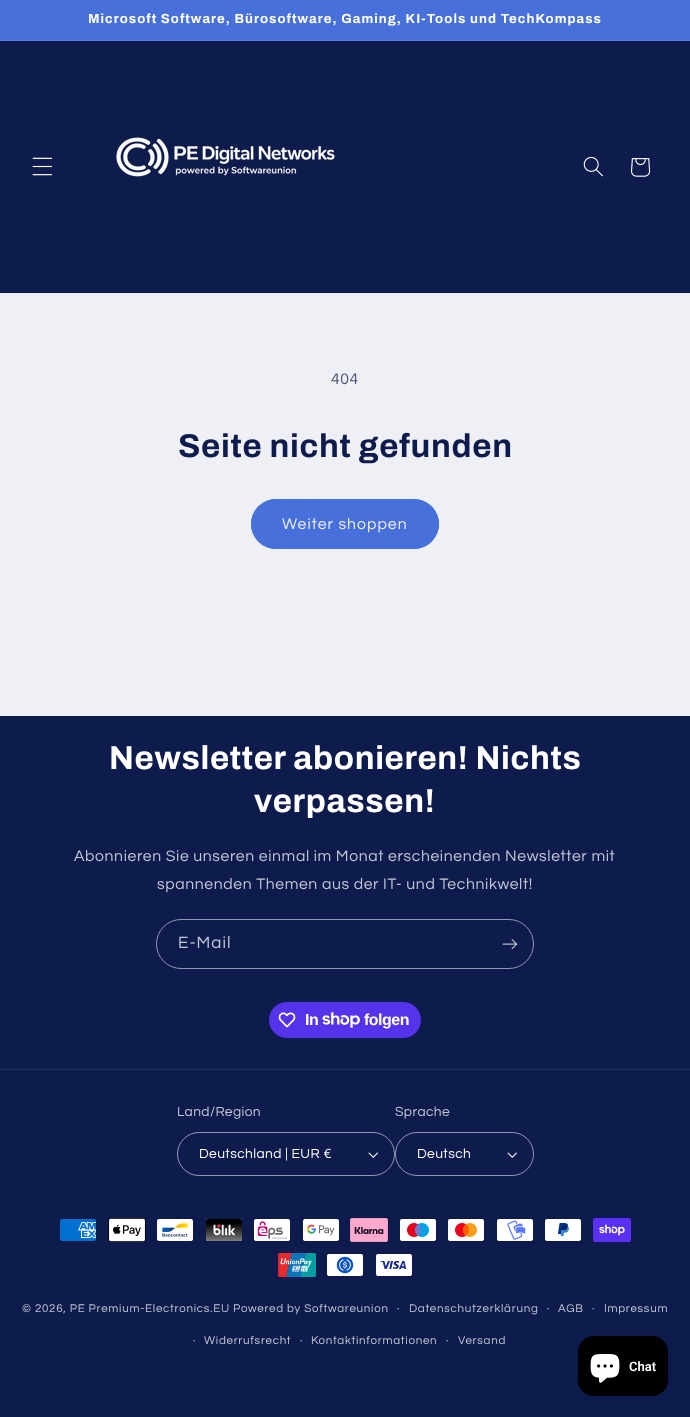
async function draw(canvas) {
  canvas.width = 690
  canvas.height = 1417
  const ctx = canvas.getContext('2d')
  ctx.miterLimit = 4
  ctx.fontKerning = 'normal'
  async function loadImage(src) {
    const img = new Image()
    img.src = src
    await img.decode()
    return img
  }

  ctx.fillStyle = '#eff0f5'
  ctx.fillRect(0, 0, 690, 1417)
  ctx.fillStyle = '#4770db'
  ctx.fillRect(0, 0, 690, 40)
  ctx.fillStyle = '#567bde'
  ctx.fillRect(0, 40, 690, 1)
  ctx.letterSpacing = '1.05px'
  ctx.font = 'bold 13.2px Archivo'
  ctx.fillStyle = '#fff'
  ctx.fillText('Microsoft Software, Bürosoftware, Gaming, KI-Tools und TechKompass', 88, 23)
  ctx.fillStyle = '#0e1b4d'
  ctx.fillRect(0, 41, 690, 252)
  ctx.drawImage(await loadImage('image0.png'), 32, 157, 20, 19)
  ctx.drawImage(await loadImage('image1.png'), 116, 137, 219, 40)
  ctx.drawImage(await loadImage('image2.png'), 583, 156, 20, 21)
  ctx.drawImage(await loadImage('image3.png'), 631, 158, 20, 19)
  ctx.letterSpacing = '0.63px'
  ctx.font = '15.75px Questrial'
  ctx.fillStyle = '#465077'
  ctx.fillText('404', 331, 384)
  ctx.letterSpacing = '0.65px'
  ctx.font = 'bold 33px Archivo'
  ctx.fillStyle = '#0e1b4d'
  ctx.fillText('Seite nicht gefunden', 178, 457)
  ctx.fillStyle = '#4770db'
  ctx.beginPath()
  ctx.roundRect(251, 499, 188, 50, 25)
  ctx.fill()
  ctx.beginPath()
  ctx.roundRect(251.5, 499.5, 187, 49, 24.5)
  ctx.strokeStyle = '#4770db'
  ctx.stroke()
  ctx.letterSpacing = '1.05px'
  ctx.font = '15.75px Questrial'
  ctx.fillStyle = '#eff0f5'
  ctx.fillText('Weiter shoppen', 282, 529)
  ctx.fillStyle = '#0e1b4d'
  ctx.fillRect(0, 716, 690, 701)
  ctx.letterSpacing = '0.65px'
  ctx.font = 'bold 33px Archivo'
  ctx.fillStyle = '#fff'
  ctx.fillText('Newsletter abonieren! Nichts', 109, 769)
  ctx.fillText('verpassen!', 254, 812)
  ctx.letterSpacing = '0.63px'
  ctx.font = '15.75px Questrial'
  ctx.fillStyle = '#c3c6d3'
  ctx.fillText('Abonnieren Sie unseren einmal im Monat erscheinenden Newsletter mit', 74, 861)
  ctx.fillText('spannenden Themen aus der IT- und Technikwelt!', 157, 889)
  ctx.beginPath()
  ctx.roundRect(156.5, 919.5, 377, 49, 24.5)
  ctx.strokeStyle = '#9398af'
  ctx.stroke()
  ctx.letterSpacing = '1.05px'
  ctx.font = '17px Questrial'
  ctx.fillText('E-Mail', 178, 948)
  ctx.drawImage(await loadImage('image4.png'), 502, 939, 16, 11)
  ctx.fillStyle = '#5433eb'
  ctx.beginPath()
  ctx.roundRect(269, 1002, 152, 36, 18)
  ctx.fill()
  ctx.drawImage(await loadImage('image5.png'), 278, 1012, 18, 16)
  ctx.letterSpacing = '-0.5px'
  ctx.font = 'bold 16px Liberation Sans'
  ctx.fillStyle = '#fff'
  ctx.fillText('In', 305, 1025)
  ctx.drawImage(await loadImage('image6.png'), 322, 1012, 38, 16)
  ctx.fillText('folgen', 364, 1025)
  ctx.fillStyle = '#212d5b'
  ctx.fillRect(0, 1069, 690, 1)
  ctx.letterSpacing = '0.4px'
  ctx.font = '13.75px Questrial'
  ctx.fillStyle = '#c3c6d3'
  ctx.fillText('Land/Region', 177, 1116)
  ctx.drawImage(await loadImage('image7.png'), 368, 1152, 10, 6)
  ctx.beginPath()
  ctx.roundRect(177.5, 1132.5, 217, 43, 21.5)
  ctx.stroke()
  ctx.fillStyle = '#fff'
  ctx.fillText('Deutschland | EUR €', 199, 1158)
  ctx.fillStyle = '#c3c6d3'
  ctx.fillText('Sprache', 395, 1116)
  ctx.drawImage(await loadImage('image7.png'), 507, 1152, 10, 6)
  ctx.beginPath()
  ctx.roundRect(395.5, 1132.5, 138, 43, 21.5)
  ctx.stroke()
  ctx.fillStyle = '#fff'
  ctx.fillText('Deutsch', 417, 1158)
  ctx.drawImage(await loadImage('image8.png'), 59, 1218, 38, 24)
  ctx.drawImage(await loadImage('image9.png'), 108, 1218, 38, 24)
  ctx.drawImage(await loadImage('image10.png'), 156, 1218, 38, 24)
  ctx.drawImage(await loadImage('image11.png'), 205, 1218, 38, 24)
  ctx.drawImage(await loadImage('image12.png'), 253, 1218, 38, 24)
  ctx.drawImage(await loadImage('image13.png'), 302, 1218, 38, 24)
  ctx.drawImage(await loadImage('image14.png'), 350, 1218, 38, 24)
  ctx.drawImage(await loadImage('image15.png'), 399, 1218, 38, 24)
  ctx.drawImage(await loadImage('image16.png'), 447, 1218, 38, 24)
  ctx.drawImage(await loadImage('image17.png'), 496, 1218, 38, 24)
  ctx.drawImage(await loadImage('image18.png'), 544, 1218, 38, 24)
  ctx.drawImage(await loadImage('image19.png'), 593, 1218, 38, 24)
  ctx.drawImage(await loadImage('image20.png'), 278, 1253, 38, 24)
  ctx.drawImage(await loadImage('image21.png'), 326, 1253, 38, 24)
  ctx.drawImage(await loadImage('image22.png'), 375, 1253, 38, 24)
  ctx.letterSpacing = '0.73px'
  ctx.font = '11.55px Questrial'
  ctx.fillStyle = '#c3c6d3'
  ctx.fillText('© 2026, PE Premium-Electronics.EU Powered by Softwareunion', 22, 1312)
  ctx.fillText('·', 397, 1312)
  ctx.fillText('Datenschutzerklärung', 409, 1312)
  ctx.fillText('·', 547, 1312)
  ctx.fillText('AGB', 558, 1312)
  ctx.fillText('·', 592, 1312)
  ctx.fillText('Impressum', 604, 1312)
  ctx.fillText('·', 193, 1344)
  ctx.fillText('Widerrufsrecht', 204, 1344)
  ctx.fillText('·', 300, 1344)
  ctx.fillText('Kontaktinformationen', 311, 1344)
  ctx.fillText('·', 446, 1344)
  ctx.fillText('Versand', 458, 1344)
  ctx.fillStyle = '#00000026'
  ctx.filter = 'blur(2.5px)'
  ctx.beginPath()
  ctx.roundRect(578, 1336, 90, 60, 16)
  ctx.fill()
  ctx.filter = 'none'
  ctx.fillStyle = '#000'
  ctx.beginPath()
  ctx.roundRect(578, 1336, 90, 60, 16)
  ctx.fill()
  ctx.drawImage(await loadImage('image23.png'), 590, 1354, 30, 29)
  ctx.letterSpacing = '0px'
  ctx.font = '600 13px Roboto'
  ctx.fillStyle = '#fff'
  ctx.fillText('Chat', 629, 1371)
}

draw(document.querySelector('canvas'))
